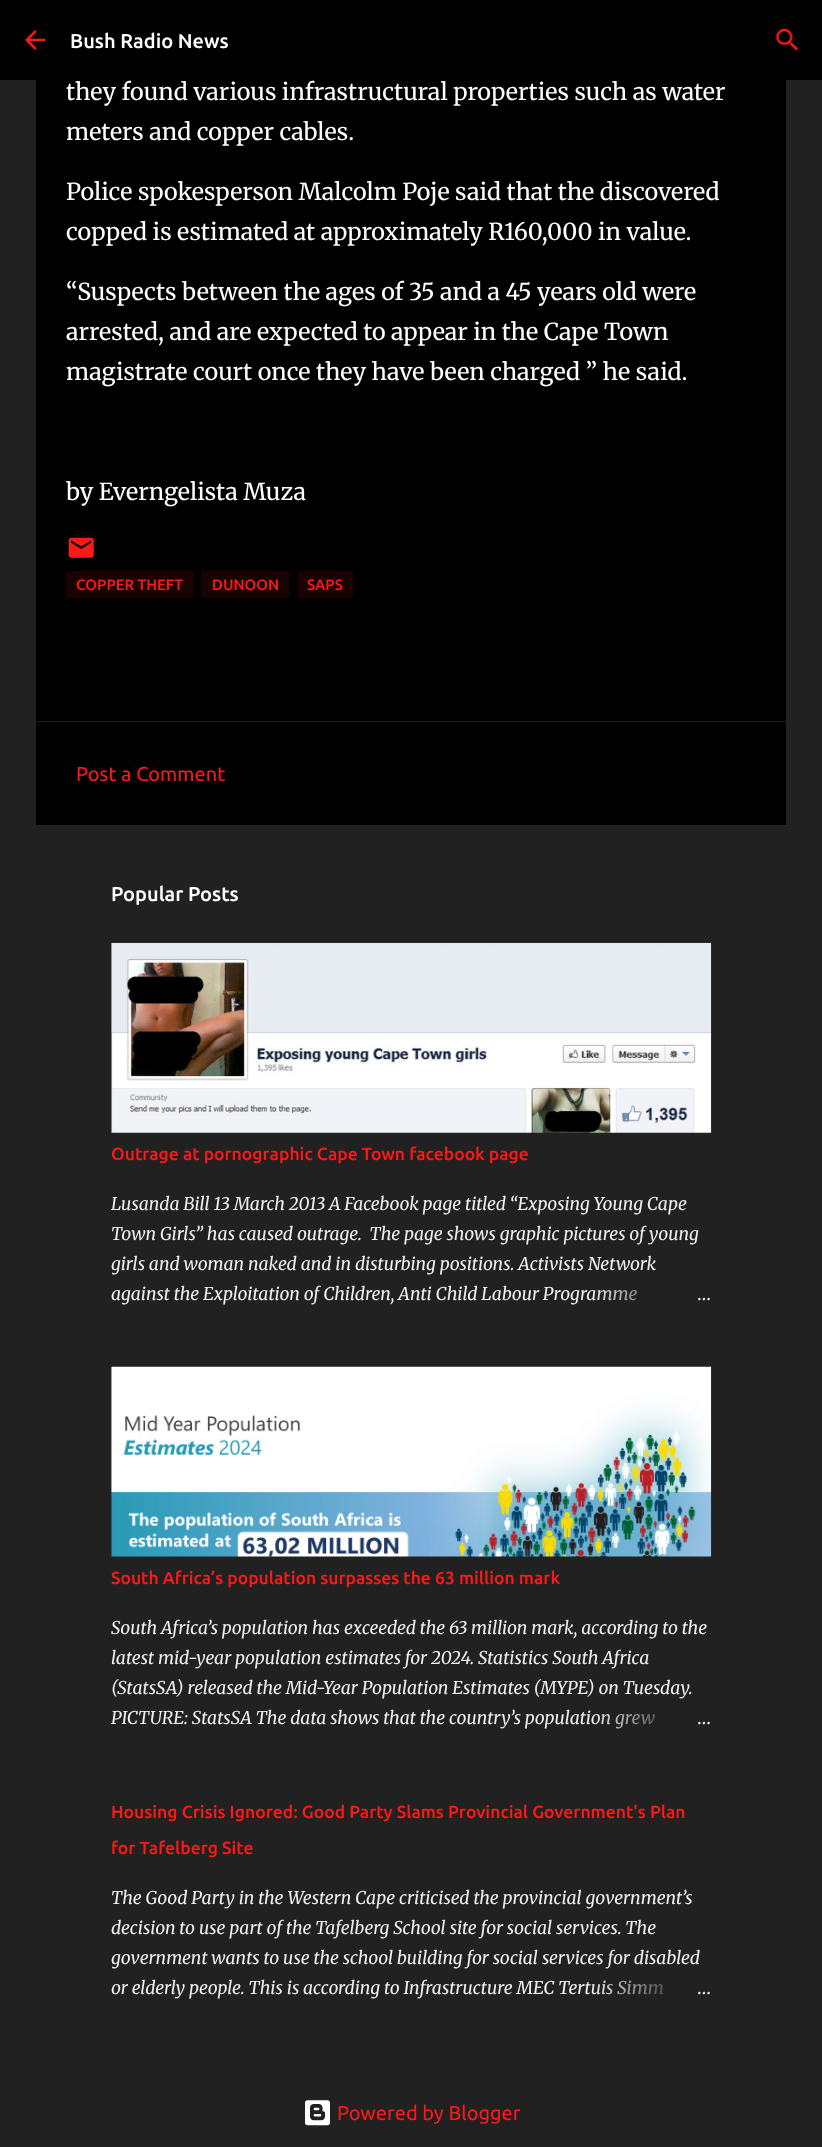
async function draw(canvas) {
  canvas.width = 822
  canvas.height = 2147
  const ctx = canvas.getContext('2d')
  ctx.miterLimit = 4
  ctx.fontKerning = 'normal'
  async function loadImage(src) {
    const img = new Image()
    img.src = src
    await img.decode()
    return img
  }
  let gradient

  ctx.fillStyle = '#212121'
  ctx.fillRect(0, 0, 822, 2147)
  ctx.fillStyle = '#000'
  ctx.fillRect(0, 0, 822, 80)
  ctx.drawImage(await loadImage('image0.png'), 25, 30, 20, 20)
  ctx.font = '500 20px Ubuntu'
  ctx.fillStyle = '#fff'
  ctx.fillText('Bush Radio News', 70, 48)
  ctx.drawImage(await loadImage('image1.png'), 775, 28, 24, 23)
  ctx.fillStyle = '#000'
  ctx.fillRect(36, 80, 750, 641)
  ctx.font = '300 23.3px Merriweather'
  ctx.fillStyle = '#fff'
  ctx.fillText('they found various infrastructural properties such as water', 66, 100)
  ctx.fillText('meters and copper cables.', 66, 140)
  ctx.fillText('Police spokesperson Malcolm Poje said that the discovered', 66, 200)
  ctx.fillText('copped is estimated at approximately R160,000 in value.', 66, 240)
  ctx.fillText('“Suspects between the ages of 35 and a 45 years old were', 66, 300)
  ctx.fillText('arrested, and are expected to appear in the Cape Town', 66, 340)
  ctx.fillText('magistrate court once they have been charged ” he said.', 66, 380)
  ctx.fillText('by Everngelista Muza', 66, 500)
  ctx.drawImage(await loadImage('image2.png'), 68, 537, 26, 21)
  ctx.fillStyle = '#1a0202'
  ctx.beginPath()
  ctx.roundRect(66, 571, 128, 27, 2.5)
  ctx.fill()
  ctx.font = '500 15px Ubuntu'
  ctx.fillStyle = '#ff1818'
  ctx.fillText('COPPER THEFT', 76, 590)
  ctx.fillStyle = '#1a0202'
  ctx.beginPath()
  ctx.roundRect(201, 571, 88, 27, 2.5)
  ctx.fill()
  ctx.fillStyle = '#ff1818'
  ctx.fillText('DUNOON', 212, 590)
  ctx.fillStyle = '#1a0202'
  ctx.beginPath()
  ctx.roundRect(298, 571, 55, 27, 2.5)
  ctx.fill()
  ctx.fillStyle = '#ff1818'
  ctx.fillText('SAPS', 307, 590)
  ctx.fillStyle = '#000'
  ctx.fillRect(36, 722, 750, 103)
  ctx.fillStyle = '#1e1e1e'
  ctx.fillRect(36, 721, 750, 1)
  ctx.font = '20px Ubuntu'
  ctx.fillStyle = '#ff1818'
  ctx.fillText('Post a Comment', 76, 781)
  ctx.font = '500 20px Ubuntu'
  ctx.fillStyle = '#fff'
  ctx.fillText('Popular Posts', 111, 901)
  ctx.drawImage(await loadImage('image3.png'), 111, 942, 601, 191)
  ctx.font = '500 17.5px Ubuntu'
  ctx.fillStyle = '#ff1818'
  ctx.fillText('Outrage at pornographic Cape Town facebook page', 111, 1160)
  ctx.font = 'italic 17.5px Merriweather'
  ctx.fillStyle = '#eee'
  ctx.fillText('Lusanda Bill 13 March 2013 A Facebook page titled “Exposing Young Cape', 111, 1210)
  ctx.fillText('Town Girls” has caused outrage.  The page shows graphic pictures of young', 111, 1240)
  ctx.fillText('girls and woman naked and in disturbing positions. Activists Network', 111, 1270)
  ctx.fillText('against the Exploitation of Children, Anti Child Labour Programme', 111, 1300)
  gradient = ctx.createLinearGradient(711, 1294, 591, 1294)
  gradient.addColorStop(0, '#212121')
  gradient.addColorStop(0.2, '#212121')
  gradient.addColorStop(1, '#21212100')
  ctx.fillStyle = gradient
  ctx.fillRect(593, 1290, 44, 11)
  ctx.font = '300 17.5px Merriweather'
  ctx.fillStyle = '#eee'
  ctx.fillText('…', 697, 1300)
  ctx.drawImage(await loadImage('image4.png'), 111, 1366, 601, 191)
  ctx.font = '500 17.5px Ubuntu'
  ctx.fillStyle = '#ff1818'
  ctx.fillText('South Africa’s population surpasses the 63 million mark', 111, 1584)
  ctx.font = 'italic 17.5px Merriweather'
  ctx.fillStyle = '#eee'
  ctx.fillText('South Africa’s population has exceeded the 63 million mark, according to the', 111, 1634)
  ctx.fillText('latest mid-year population estimates for 2024. Statistics South Africa', 111, 1664)
  ctx.fillText('(StatsSA) released the Mid-Year Population Estimates (MYPE) on Tuesday.', 111, 1694)
  ctx.fillText('PICTURE: StatsSA The data shows that the country’s population grew', 111, 1724)
  gradient = ctx.createLinearGradient(711, 1718, 591, 1718)
  gradient.addColorStop(0, '#212121')
  gradient.addColorStop(0.2, '#212121')
  gradient.addColorStop(1, '#21212100')
  ctx.fillStyle = gradient
  ctx.fillRect(593, 1714, 62, 15)
  ctx.font = '300 17.5px Merriweather'
  ctx.fillStyle = '#eee'
  ctx.fillText('…', 697, 1724)
  ctx.font = '500 17.5px Ubuntu'
  ctx.fillStyle = '#ff1818'
  ctx.fillText('Housing Crisis Ignored: Good Party Slams Provincial Government\'s Plan', 111, 1818)
  ctx.fillText('for Tafelberg Site', 111, 1854)
  ctx.font = 'italic 17.5px Merriweather'
  ctx.fillStyle = '#eee'
  ctx.fillText('The Good Party in the Western Cape criticised the provincial government’s', 111, 1904)
  ctx.fillText('decision to use part of the Tafelberg School site for social services. The', 111, 1934)
  ctx.fillText('government wants to use the school building for social services for disabled', 111, 1964)
  ctx.fillText('or elderly people. This is according to Infrastructure MEC Tertuis Simm', 111, 1994)
  gradient = ctx.createLinearGradient(711, 1988, 591, 1988)
  gradient.addColorStop(0, '#212121')
  gradient.addColorStop(0.2, '#212121')
  gradient.addColorStop(1, '#21212100')
  ctx.fillStyle = gradient
  ctx.fillRect(593, 1980, 71, 15)
  ctx.font = '300 17.5px Merriweather'
  ctx.fillStyle = '#eee'
  ctx.fillText('…', 697, 1994)
  ctx.drawImage(await loadImage('image5.png'), 305, 2100, 25, 26)
  ctx.font = '20px Ubuntu'
  ctx.fillStyle = '#ff1818'
  ctx.fillText('Powered by Blogger', 337, 2120)
}

draw(document.querySelector('canvas'))
